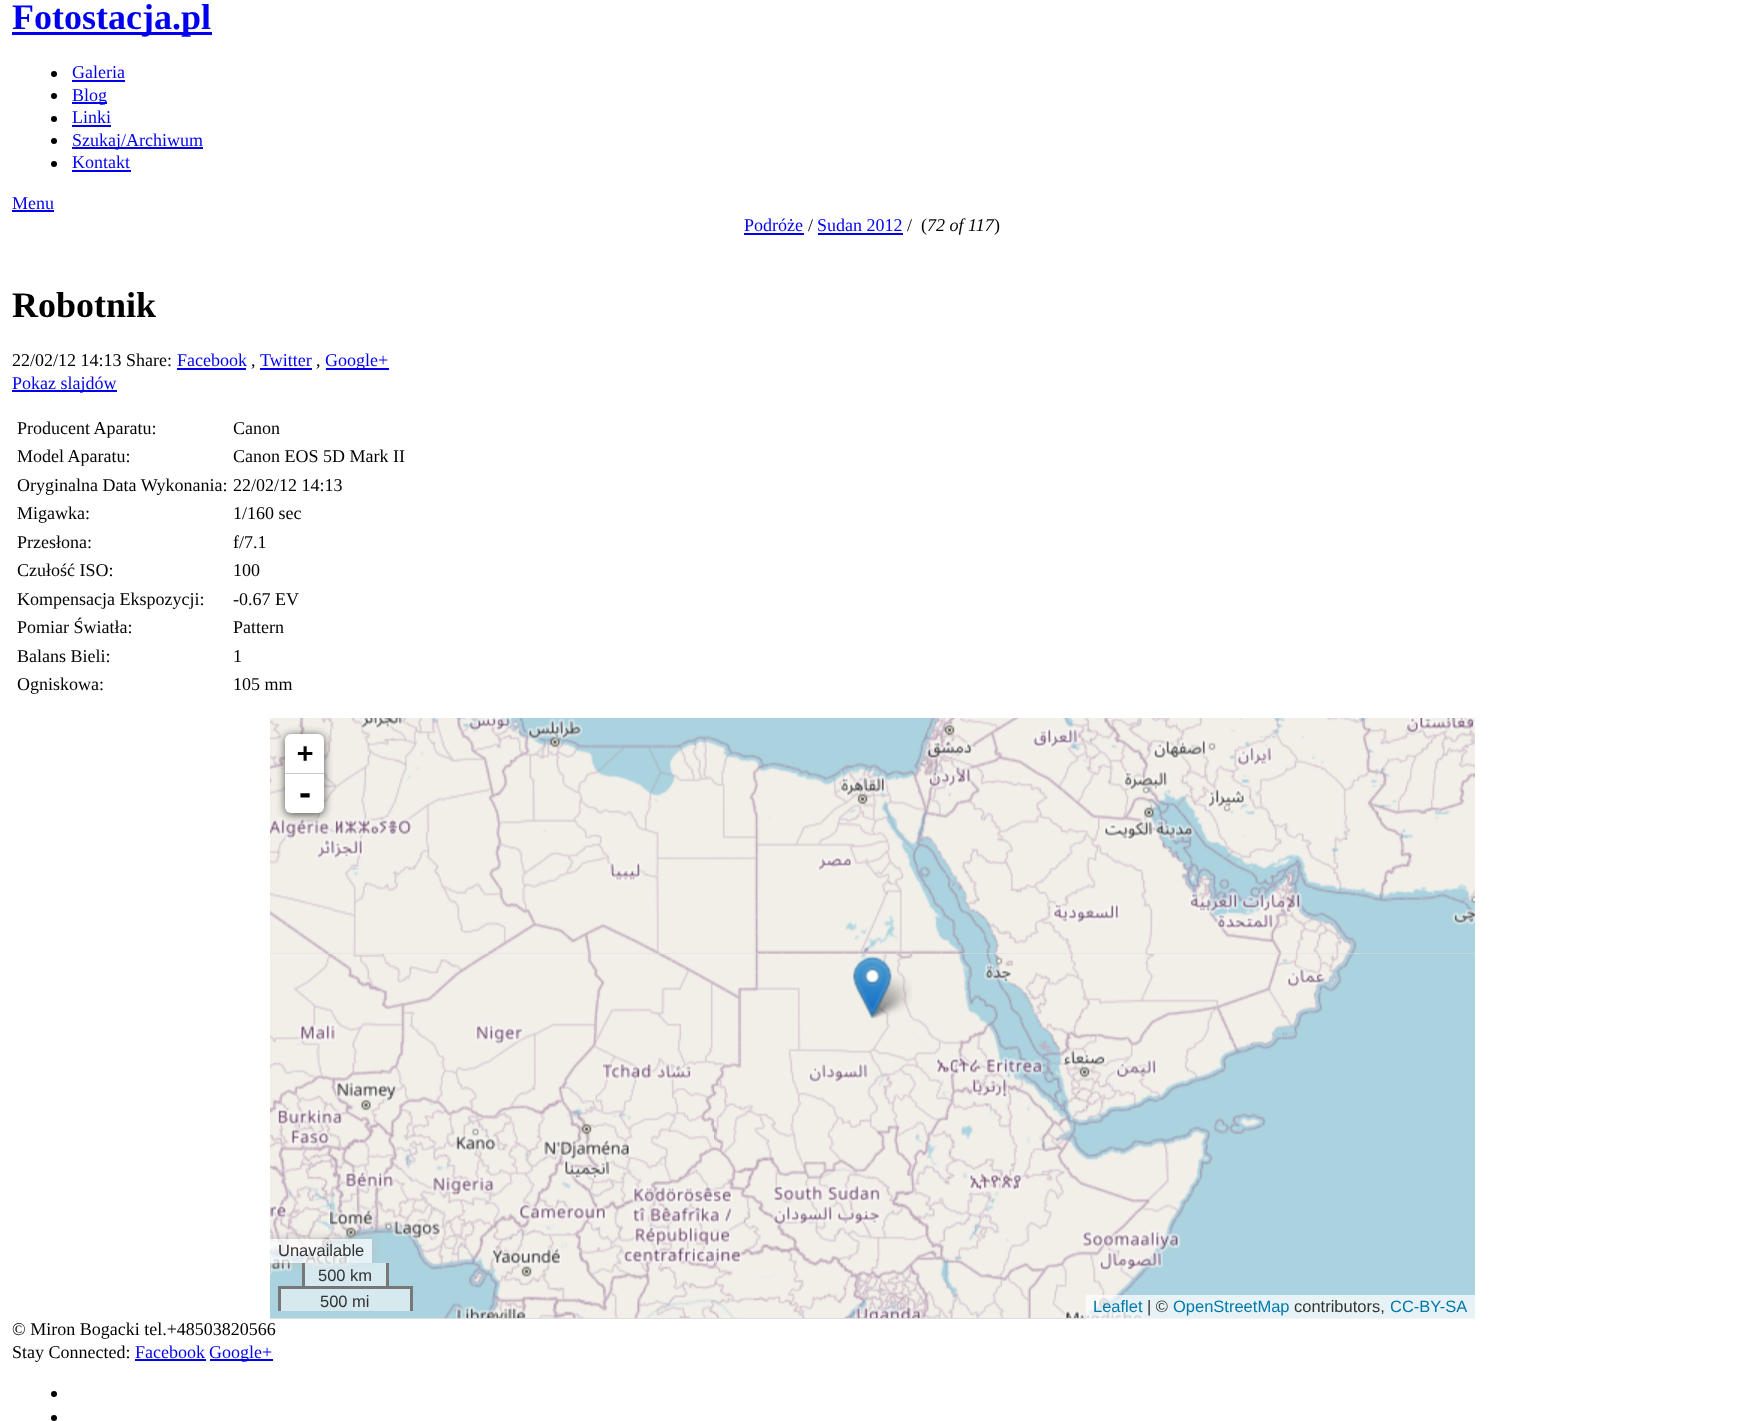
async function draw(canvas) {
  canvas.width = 1744
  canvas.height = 1421
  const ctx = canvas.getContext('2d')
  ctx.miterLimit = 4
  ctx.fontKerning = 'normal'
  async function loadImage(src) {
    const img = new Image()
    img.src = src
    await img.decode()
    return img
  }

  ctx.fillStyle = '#fff'
  ctx.fillRect(0, 0, 1744, 1421)
  ctx.fillStyle = '#00e'
  ctx.fillRect(12, 32, 200, 3)
  ctx.font = 'bold 36px Liberation Serif'
  ctx.fillText('Fotostacja.pl', 12, 29)
  ctx.fillStyle = '#000'
  ctx.beginPath()
  ctx.arc(54, 74, 3, 0, 2 * Math.PI)
  ctx.fill()
  ctx.font = '18px Liberation Serif'
  ctx.fillStyle = '#00e'
  ctx.fillText('Galeria', 72, 78)
  ctx.fillRect(72, 80, 53, 2)
  ctx.fillStyle = '#000'
  ctx.beginPath()
  ctx.arc(54, 96, 3, 0, 2 * Math.PI)
  ctx.fill()
  ctx.fillStyle = '#00e'
  ctx.fillRect(72, 102, 35, 2)
  ctx.fillText('Blog', 72, 101)
  ctx.fillStyle = '#000'
  ctx.beginPath()
  ctx.arc(54, 119, 3, 0, 2 * Math.PI)
  ctx.fill()
  ctx.fillStyle = '#00e'
  ctx.fillText('Linki', 72, 123)
  ctx.fillRect(72, 125, 39, 2)
  ctx.fillStyle = '#000'
  ctx.beginPath()
  ctx.arc(54, 141, 3, 0, 2 * Math.PI)
  ctx.fill()
  ctx.fillStyle = '#00e'
  ctx.fillRect(72, 147, 131, 2)
  ctx.fillText('Szukaj/Archiwum', 72, 146)
  ctx.fillStyle = '#000'
  ctx.beginPath()
  ctx.arc(54, 164, 3, 0, 2 * Math.PI)
  ctx.fill()
  ctx.fillStyle = '#00e'
  ctx.fillText('Kontakt', 72, 168)
  ctx.fillRect(72, 170, 59, 2)
  ctx.fillText('Menu', 12, 209)
  ctx.fillRect(12, 210, 42, 2)
  ctx.fillText('Podróże', 744, 231)
  ctx.fillRect(744, 233, 60, 2)
  ctx.fillStyle = '#000'
  ctx.fillText('/', 808, 231)
  ctx.fillStyle = '#00e'
  ctx.fillText('Sudan 2012', 817, 231)
  ctx.fillRect(818, 233, 85, 2)
  ctx.fillStyle = '#000'
  ctx.fillText('/', 907, 231)
  ctx.fillText('(', 921, 231)
  ctx.font = 'italic 18px Liberation Serif'
  ctx.fillText('72 of 117', 927, 231)
  ctx.font = '18px Liberation Serif'
  ctx.fillText(')', 994, 231)
  ctx.font = 'bold 36px Liberation Serif'
  ctx.fillText('Robotnik', 12, 317)
  ctx.font = '18px Liberation Serif'
  ctx.fillText('22/02/12 14:13 Share:', 12, 366)
  ctx.fillStyle = '#00e'
  ctx.fillText('Facebook', 177, 366)
  ctx.fillStyle = '#000'
  ctx.fillText(',', 251, 366)
  ctx.fillStyle = '#00e'
  ctx.fillRect(177, 368, 69, 2)
  ctx.fillText('Twitter', 260, 366)
  ctx.fillStyle = '#000'
  ctx.fillText(',', 316, 366)
  ctx.fillStyle = '#00e'
  ctx.fillRect(260, 368, 52, 2)
  ctx.fillRect(326, 368, 63, 2)
  ctx.fillText('Google+', 325, 366)
  ctx.fillRect(12, 390, 105, 2)
  ctx.fillText('Pokaz slajdów', 12, 389)
  ctx.fillStyle = '#000'
  ctx.fillText('Producent Aparatu:', 17, 434)
  ctx.fillText('Canon', 233, 434)
  ctx.fillText('Model Aparatu:', 17, 462)
  ctx.fillText('Canon EOS 5D Mark II', 233, 462)
  ctx.fillText('Oryginalna Data Wykonania:', 17, 491)
  ctx.fillText('22/02/12 14:13', 233, 491)
  ctx.fillText('Migawka:', 17, 519)
  ctx.fillText('1/160 sec', 233, 519)
  ctx.fillText('Przesłona:', 17, 548)
  ctx.fillText('f/7.1', 233, 548)
  ctx.fillText('Czułość ISO:', 17, 576)
  ctx.fillText('100', 233, 576)
  ctx.fillText('Kompensacja Ekspozycji:', 17, 605)
  ctx.fillText('-0.67 EV', 233, 605)
  ctx.fillText('Pomiar Światła:', 17, 633)
  ctx.fillText('Pattern', 233, 633)
  ctx.fillText('Balans Bieli:', 17, 662)
  ctx.fillText('1', 233, 662)
  ctx.fillText('Ogniskowa:', 17, 690)
  ctx.fillText('105 mm', 233, 690)
  ctx.fillStyle = '#ddd'
  ctx.fillRect(270, 953, 1205, 366)
  ctx.drawImage(await loadImage('image0.png'), 270, 718, 60, 236)
  ctx.drawImage(await loadImage('image1.png'), 330, 718, 384, 236)
  ctx.drawImage(await loadImage('image2.png'), 714, 718, 384, 236)
  ctx.drawImage(await loadImage('image3.png'), 1098, 718, 377, 236)
  ctx.drawImage(await loadImage('image4.png'), 270, 954, 60, 364)
  ctx.drawImage(await loadImage('image5.png'), 330, 954, 384, 364)
  ctx.drawImage(await loadImage('image6.png'), 714, 954, 384, 364)
  ctx.drawImage(await loadImage('image7.png'), 1098, 954, 377, 364)
  ctx.drawImage(await loadImage('image9.png'), 867, 975, 45, 44)
  ctx.drawImage(await loadImage('image8.png'), 853, 956, 39, 63)
  ctx.fillStyle = '#000000a6'
  ctx.filter = 'blur(4px)'
  ctx.beginPath()
  ctx.roundRect(285, 735, 39, 80, 6)
  ctx.fill()
  ctx.filter = 'none'
  ctx.fillStyle = '#fff'
  ctx.beginPath()
  ctx.roundRect(285, 734, 39, 40, [6, 6, 0, 0])
  ctx.fill()
  ctx.fillStyle = '#ccc'
  ctx.fillRect(285, 773, 39, 1)
  ctx.font = 'bold 27px DejaVu Sans Mono'
  ctx.fillStyle = '#000'
  ctx.fillText('+', 297, 762)
  ctx.fillStyle = '#fff'
  ctx.beginPath()
  ctx.roundRect(285, 774, 39, 39, [0, 0, 6, 6])
  ctx.fill()
  ctx.font = 'bold 30px DejaVu Sans Mono'
  ctx.fillStyle = '#000'
  ctx.fillText('-', 296, 804)
  ctx.save()
  ctx.beginPath()
  ctx.rect(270, 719, 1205, 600)
  ctx.clip()
  ctx.beginPath()
  ctx.moveTo(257, 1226)
  ctx.lineTo(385, 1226)
  ctx.lineTo(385, 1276)
  ctx.lineTo(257, 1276)
  ctx.closePath()
  ctx.moveTo(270, 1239)
  ctx.lineTo(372, 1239)
  ctx.lineTo(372, 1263)
  ctx.lineTo(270, 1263)
  ctx.closePath()
  ctx.clip('evenodd')
  ctx.fillStyle = '#bbb'
  ctx.filter = 'blur(4px)'
  ctx.beginPath()
  ctx.rect(270, 1239, 102, 24)
  ctx.fill()
  ctx.filter = 'none'
  ctx.restore()
  ctx.fillStyle = '#ffffffb3'
  ctx.fillRect(270, 1239, 102, 24)
  ctx.font = '16.5px Liberation Sans'
  ctx.fillStyle = '#333'
  ctx.fillText('Unavailable', 278, 1256)
  ctx.fillStyle = '#ffffff80'
  ctx.fillRect(305, 1263, 81, 23)
  ctx.fillStyle = '#777'
  ctx.fillRect(386, 1263, 3, 26)
  ctx.fillRect(302, 1263, 3, 26)
  ctx.fillStyle = '#333'
  ctx.fillText('500 km', 318, 1281)
  ctx.fillStyle = '#ffffff80'
  ctx.fillRect(281, 1289, 129, 22)
  ctx.fillStyle = '#777'
  ctx.fillRect(278, 1286, 135, 3)
  ctx.fillRect(410, 1286, 3, 25)
  ctx.fillRect(278, 1286, 3, 25)
  ctx.fillStyle = '#333'
  ctx.fillText('500 mi', 320, 1307)
  ctx.fillStyle = '#ffffffb3'
  ctx.fillRect(1086, 1295, 389, 24)
  ctx.fillStyle = '#0078a8'
  ctx.fillText('Leaflet', 1093, 1312)
  ctx.fillStyle = '#333'
  ctx.fillText('| ©', 1147, 1312)
  ctx.fillStyle = '#0078a8'
  ctx.fillText('OpenStreetMap', 1173, 1312)
  ctx.fillStyle = '#333'
  ctx.fillText('contributors,', 1294, 1312)
  ctx.fillStyle = '#0078a8'
  ctx.fillText('CC-BY-SA', 1390, 1312)
  ctx.font = '18px Liberation Serif'
  ctx.fillStyle = '#000'
  ctx.fillText('© Miron Bogacki tel.+48503820566', 12, 1335)
  ctx.fillText('Stay Connected:', 12, 1358)
  ctx.fillStyle = '#00e'
  ctx.fillText('Facebook', 135, 1358)
  ctx.fillRect(135, 1359, 71, 2)
  ctx.fillRect(210, 1359, 63, 2)
  ctx.fillText('Google+', 209, 1358)
  ctx.fillStyle = '#000'
  ctx.beginPath()
  ctx.arc(54, 1394, 3, 0, 2 * Math.PI)
  ctx.fill()
  ctx.beginPath()
  ctx.arc(54, 1418, 3, 0, 2 * Math.PI)
  ctx.fill()
}

draw(document.querySelector('canvas'))
